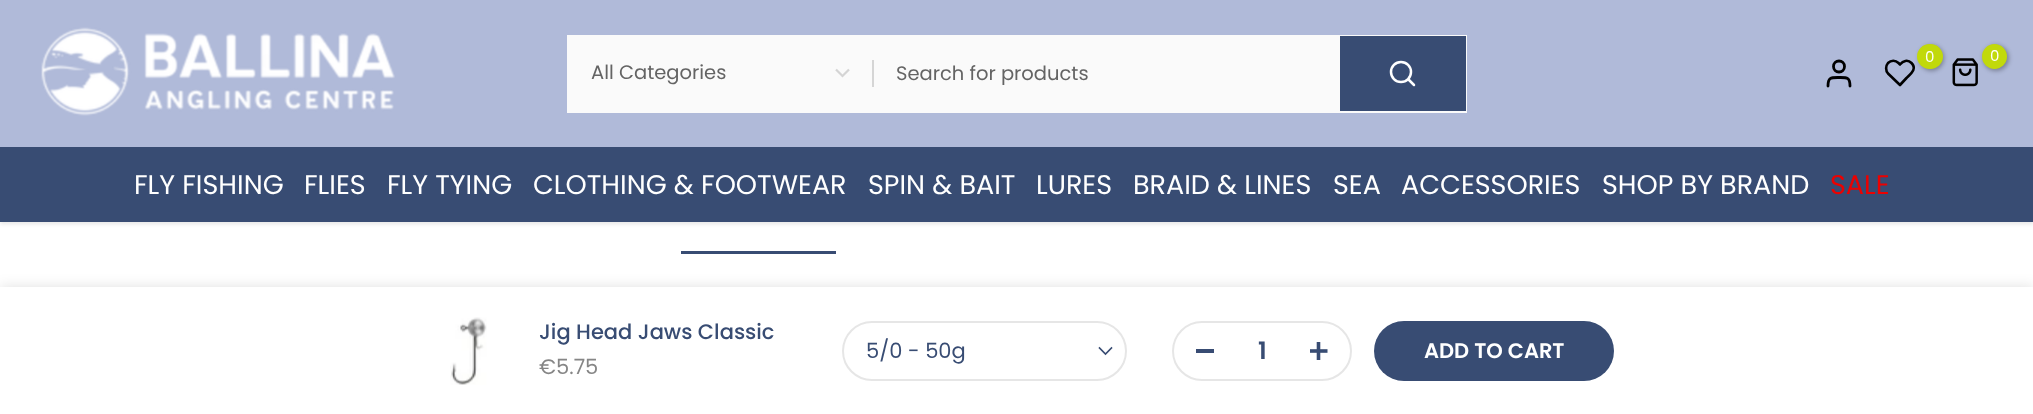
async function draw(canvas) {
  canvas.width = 2033
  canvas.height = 414
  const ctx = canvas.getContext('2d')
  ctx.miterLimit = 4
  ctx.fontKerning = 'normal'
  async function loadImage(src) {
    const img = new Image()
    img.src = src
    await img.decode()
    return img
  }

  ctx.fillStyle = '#fff'
  ctx.fillRect(0, 0, 2033, 414)
  ctx.fillStyle = '#0000001a'
  ctx.filter = 'blur(2px)'
  ctx.beginPath()
  ctx.rect(0, 2, 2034, 222)
  ctx.fill()
  ctx.filter = 'none'
  ctx.fillStyle = '#b0bad9'
  ctx.fillRect(0, 0, 2033, 147)
  ctx.drawImage(await loadImage('image0.png'), 41, 27, 354, 89)
  ctx.beginPath()
  ctx.moveTo(1911.5, 63)
  ctx.bezierCurveTo(1907.5, 59, 1903, 61, 1900, 64.5)
  ctx.lineTo(1898.5, 63)
  ctx.bezierCurveTo(1895.5, 60, 1891, 60, 1888, 63)
  ctx.bezierCurveTo(1885.5, 66, 1885.5, 70.5, 1888, 73.5)
  ctx.lineTo(1900, 85)
  ctx.lineTo(1906.5, 78)
  ctx.bezierCurveTo(1910.5, 74, 1917.5, 69, 1911.5, 63)
  ctx.closePath()
  ctx.strokeStyle = '#000'
  ctx.lineWidth = 2.6
  ctx.lineCap = 'round'
  ctx.lineJoin = 'round'
  ctx.stroke()
  ctx.fillStyle = '#0000004d'
  ctx.filter = 'blur(2px)'
  ctx.beginPath()
  ctx.roundRect(1919, 45, 25, 26, 12.5)
  ctx.fill()
  ctx.filter = 'none'
  ctx.fillStyle = '#c1d90b'
  ctx.beginPath()
  ctx.roundRect(1917, 44, 26, 25, 12.5)
  ctx.fill()
  ctx.font = '15px Poppins'
  ctx.fillStyle = '#fff'
  ctx.fillText('0', 1925, 62)
  ctx.drawImage(await loadImage('image1.png'), 1952, 58, 26, 29)
  ctx.fillStyle = '#0000004d'
  ctx.filter = 'blur(2px)'
  ctx.beginPath()
  ctx.roundRect(1983, 45, 26, 26, 13)
  ctx.fill()
  ctx.filter = 'none'
  ctx.fillStyle = '#c1d90b'
  ctx.beginPath()
  ctx.arc(1994.5, 56.5, 12.5, 0, 2 * Math.PI)
  ctx.fill()
  ctx.fillStyle = '#fff'
  ctx.fillText('0', 1990, 61)
  ctx.beginPath()
  ctx.arc(1839, 66.5, 5.5, 0, 2 * Math.PI)
  ctx.lineWidth = 2.8
  ctx.stroke()
  ctx.beginPath()
  ctx.moveTo(1850, 86)
  ctx.bezierCurveTo(1850, 77, 1847, 77.5, 1839, 77.5)
  ctx.bezierCurveTo(1831, 77.5, 1828, 77, 1828, 86)
  ctx.stroke()
  ctx.fillStyle = '#fafafa'
  ctx.fillRect(567, 35, 900, 78)
  ctx.beginPath()
  ctx.moveTo(836, 69.5)
  ctx.lineTo(842.5, 76)
  ctx.lineTo(849, 69.5)
  ctx.strokeStyle = '#d4d4d4'
  ctx.lineWidth = 2.2
  ctx.lineCap = 'butt'
  ctx.lineJoin = 'miter'
  ctx.stroke()
  ctx.font = '19.5px Poppins'
  ctx.fillStyle = '#646464'
  ctx.fillText('All Categories', 591, 79)
  ctx.fillStyle = '#d5d5d5'
  ctx.fillRect(872, 60, 2, 27)
  ctx.fillStyle = '#646464'
  ctx.fillText('Search for products', 896, 80)
  ctx.fillStyle = '#384c73'
  ctx.fillRect(1340, 36, 126, 75)
  ctx.beginPath()
  ctx.arc(1401, 72, 10, 0, 2 * Math.PI)
  ctx.strokeStyle = '#fff'
  ctx.lineWidth = 2.5
  ctx.stroke()
  ctx.beginPath()
  ctx.moveTo(1414, 85)
  ctx.lineTo(1408.5, 79.5)
  ctx.lineCap = 'round'
  ctx.lineJoin = 'round'
  ctx.stroke()
  ctx.fillRect(0, 147, 2033, 75)
  ctx.font = '27px Poppins'
  ctx.fillStyle = '#fff'
  ctx.fillText('FLY FISHING', 134, 194)
  ctx.fillText('FLIES', 304, 194)
  ctx.fillText('FLY TYING', 387, 194)
  ctx.fillText('CLOTHING & FOOTWEAR', 533, 194)
  ctx.fillText('SPIN & BAIT', 868, 194)
  ctx.fillText('LURES', 1036, 194)
  ctx.fillText('BRAID & LINES', 1133, 194)
  ctx.fillText('SEA', 1333, 194)
  ctx.fillText('ACCESSORIES', 1401, 194)
  ctx.fillText('SHOP BY BRAND', 1602, 194)
  ctx.fillStyle = '#ec0101'
  ctx.fillText('SALE', 1830, 194)
  ctx.fillStyle = '#384c73'
  ctx.fillRect(681, 251, 155, 3)
  ctx.fillStyle = '#0000001f'
  ctx.filter = 'blur(7px)'
  ctx.beginPath()
  ctx.rect(0, 287, 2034, 127)
  ctx.fill()
  ctx.filter = 'none'
  ctx.fillStyle = '#fff'
  ctx.fillRect(0, 287, 2033, 127)
  ctx.drawImage(await loadImage('image2.png'), 450, 317, 37, 68)
  ctx.font = '500 21px Poppins'
  ctx.fillStyle = '#384c73'
  ctx.fillText('Jig Head Jaws Classic', 539, 339)
  ctx.font = '21px Poppins'
  ctx.fillStyle = '#868686'
  ctx.fillText('€5.75', 539, 374)
  ctx.beginPath()
  ctx.roundRect(843, 322, 283, 58, 29)
  ctx.strokeStyle = '#e6e6e6'
  ctx.lineWidth = 2
  ctx.lineJoin = 'miter'
  ctx.stroke()
  ctx.fillStyle = '#384c73'
  ctx.fillText('5/0 - 50g', 866, 358)
  ctx.beginPath()
  ctx.moveTo(1111.5, 348)
  ctx.lineTo(1105.5, 354)
  ctx.lineTo(1099.5, 348)
  ctx.strokeStyle = '#384c73'
  ctx.lineWidth = 1.6
  ctx.lineCap = 'square'
  ctx.stroke()
  ctx.beginPath()
  ctx.roundRect(1173, 322, 178, 58, 29)
  ctx.strokeStyle = '#e6e6e6'
  ctx.lineWidth = 2
  ctx.stroke()
  ctx.fillRect(1196, 349, 18, 4)
  ctx.font = '600 24px Poppins'
  ctx.fillText('1', 1258, 359)
  ctx.drawImage(await loadImage('image3.png'), 1310, 342, 18, 18)
  ctx.beginPath()
  ctx.roundRect(1374, 321, 240, 60, 30)
  ctx.fill()
  ctx.font = '600 21px Poppins'
  ctx.fillStyle = '#fff'
  ctx.fillText('ADD TO CART', 1424, 358)
}

draw(document.querySelector('canvas'))
